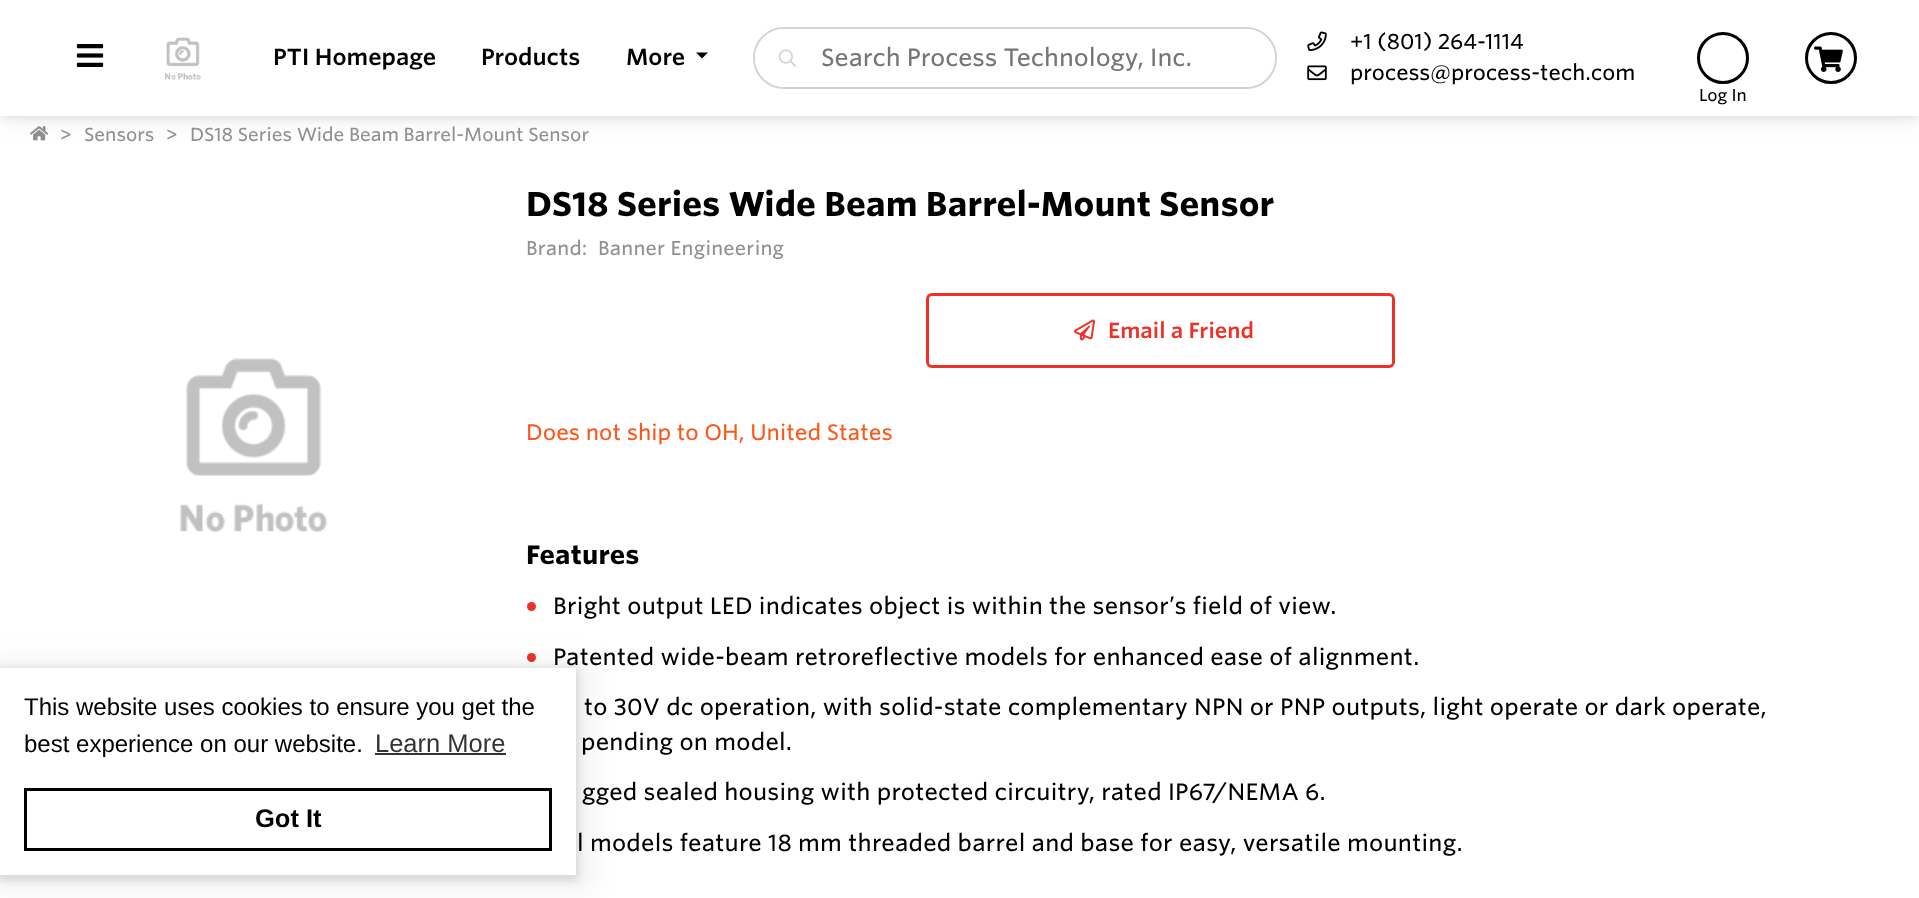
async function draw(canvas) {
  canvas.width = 1919
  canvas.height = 898
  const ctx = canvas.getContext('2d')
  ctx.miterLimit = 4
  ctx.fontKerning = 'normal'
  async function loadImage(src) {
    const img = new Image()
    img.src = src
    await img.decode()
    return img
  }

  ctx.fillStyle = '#fff'
  ctx.fillRect(0, 0, 1919, 898)
  ctx.drawImage(await loadImage('image6.png'), 30, 126, 19, 15)
  ctx.fillStyle = '#00000012'
  ctx.filter = 'blur(12px)'
  ctx.beginPath()
  ctx.rect(0, 3, 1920, 116)
  ctx.fill()
  ctx.filter = 'none'
  ctx.fillStyle = '#0000001a'
  ctx.filter = 'blur(4px)'
  ctx.beginPath()
  ctx.rect(0, 2, 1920, 115)
  ctx.fill()
  ctx.filter = 'none'
  ctx.fillStyle = '#fff'
  ctx.fillRect(0, 0, 1919, 116)
  ctx.drawImage(await loadImage('image0.png'), 76, 44, 28, 23)
  ctx.drawImage(await loadImage('image1.png'), 165, 37, 36, 43)
  ctx.font = '22.5px "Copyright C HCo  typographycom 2"'
  ctx.fillStyle = '#000'
  ctx.fillText('PTI Homepage', 273, 65)
  ctx.fillText('Products', 481, 65)
  ctx.fillText('More', 626, 65)
  ctx.beginPath()
  ctx.moveTo(696, 52.5)
  ctx.lineTo(708, 52.5)
  ctx.lineTo(702, 58.5)
  ctx.closePath()
  ctx.fill()
  ctx.beginPath()
  ctx.roundRect(754, 28, 522, 60, 30)
  ctx.strokeStyle = '#ced4da'
  ctx.lineWidth = 2
  ctx.stroke()
  ctx.fillStyle = '#fff'
  ctx.beginPath()
  ctx.roundRect(755, 29, 520, 58, 29)
  ctx.fill()
  ctx.drawImage(await loadImage('image2.png'), 778, 49, 19, 18)
  ctx.font = '300 24px "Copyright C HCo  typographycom"'
  ctx.fillStyle = '#757575'
  ctx.fillText('Search Process Technology, Inc.', 821, 66)
  ctx.drawImage(await loadImage('image3.png'), 1307, 31, 20, 20)
  ctx.font = '300 21px "Copyright C HCo  typographycom"'
  ctx.fillStyle = '#000'
  ctx.fillText('+1 (801) 264-1114', 1350, 49)
  ctx.drawImage(await loadImage('image4.png'), 1307, 65, 20, 16)
  ctx.fillText('process@process-tech.com', 1350, 80)
  ctx.beginPath()
  ctx.arc(1831, 58, 24.5, 0, 2 * Math.PI)
  ctx.strokeStyle = '#000'
  ctx.lineWidth = 3
  ctx.stroke()
  ctx.drawImage(await loadImage('image5.png'), 1814, 46, 29, 26)
  ctx.beginPath()
  ctx.arc(1723, 58, 24.5, 0, 2 * Math.PI)
  ctx.stroke()
  ctx.font = '300 16.5px "Copyright C HCo  typographycom"'
  ctx.fillText('Log In', 1699, 101)
  ctx.font = '300 18.25px "Copyright C HCo  typographycom"'
  ctx.fillStyle = '#909090'
  ctx.fillText('>', 60, 141)
  ctx.fillText('Sensors', 84, 141)
  ctx.fillText('>', 166, 141)
  ctx.fillText('DS18 Series Wide Beam Barrel-Mount Sensor', 190, 141)
  ctx.drawImage(await loadImage('image7.png'), 179, 358, 149, 175)
  ctx.font = '33px "Copyright C HCo  typographycom"'
  ctx.fillStyle = '#000'
  ctx.fillText('DS18 Series Wide Beam Barrel-Mount Sensor', 526, 216)
  ctx.letterSpacing = '0.2px'
  ctx.font = '300 19.25px "Copyright C HCo  typographycom"'
  ctx.fillStyle = '#909090'
  ctx.fillText('Brand:', 526, 255)
  ctx.fillText('Banner Engineering', 598, 255)
  ctx.beginPath()
  ctx.roundRect(927.5, 294.5, 466, 72, 4.5)
  ctx.strokeStyle = '#ef3125'
  ctx.stroke()
  ctx.drawImage(await loadImage('image8.png'), 1074, 319, 21, 22)
  ctx.letterSpacing = '0px'
  ctx.font = '21px "Copyright C HCo  typographycom 2"'
  ctx.fillStyle = '#ef3125'
  ctx.fillText('Email a Friend', 1108, 338)
  ctx.font = '300 21.6px "Copyright C HCo  typographycom"'
  ctx.fillStyle = '#fd581c'
  ctx.fillText('Does not ship to OH, United States', 526, 440)
  ctx.letterSpacing = '0.23px'
  ctx.font = '25.5px "Copyright C HCo  typographycom"'
  ctx.fillStyle = '#000'
  ctx.fillText('Features', 526, 564)
  ctx.fillStyle = '#ef3125'
  ctx.beginPath()
  ctx.arc(531.5, 606.5, 4.5, 0, 2 * Math.PI)
  ctx.fill()
  ctx.font = '300 22.8px "Copyright C HCo  typographycom"'
  ctx.fillStyle = '#000'
  ctx.fillText('Bright output LED indicates object is within the sensor’s field of view.', 553, 614)
  ctx.fillStyle = '#ef3125'
  ctx.beginPath()
  ctx.arc(531.5, 657.5, 4.5, 0, 2 * Math.PI)
  ctx.fill()
  ctx.fillStyle = '#000'
  ctx.fillText('Patented wide-beam retroreflective models for enhanced ease of alignment.', 553, 665)
  ctx.fillText('to 30V dc operation, with solid-state complementary NPN or PNP outputs, light operate or dark operate,', 584, 715)
  ctx.fillText('pending on model.', 581, 750)
  ctx.fillText('gged sealed housing with protected circuitry, rated IP67/NEMA 6.', 582, 800)
  ctx.fillText('l models feature 18 mm threaded barrel and base for easy, versatile mounting.', 577, 851)
  ctx.fillStyle = '#0000000a'
  ctx.filter = 'blur(12px)'
  ctx.beginPath()
  ctx.rect(-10, 657, 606, 237)
  ctx.fill()
  ctx.filter = 'none'
  ctx.fillStyle = '#0000001f'
  ctx.filter = 'blur(4px)'
  ctx.beginPath()
  ctx.rect(-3, 668, 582, 213)
  ctx.fill()
  ctx.filter = 'none'
  ctx.fillStyle = '#fff'
  ctx.fillRect(0, 668, 576, 207)
  ctx.letterSpacing = '0px'
  ctx.font = '24px Liberation Sans'
  ctx.fillStyle = '#000'
  ctx.fillText('This website uses cookies to ensure you get the', 24, 715)
  ctx.fillText('best experience on our website.', 24, 752)
  ctx.font = '25.5px Liberation Sans'
  ctx.fillStyle = '#333'
  ctx.fillText('Learn More', 375, 752)
  ctx.fillRect(375, 753, 131, 2)
  ctx.strokeStyle = '#000'
  ctx.strokeRect(25.5, 789.5, 525, 60)
  ctx.font = 'bold 25.5px Liberation Sans'
  ctx.fillStyle = '#000'
  ctx.fillText('Got It', 255, 827)
}

draw(document.querySelector('canvas'))
